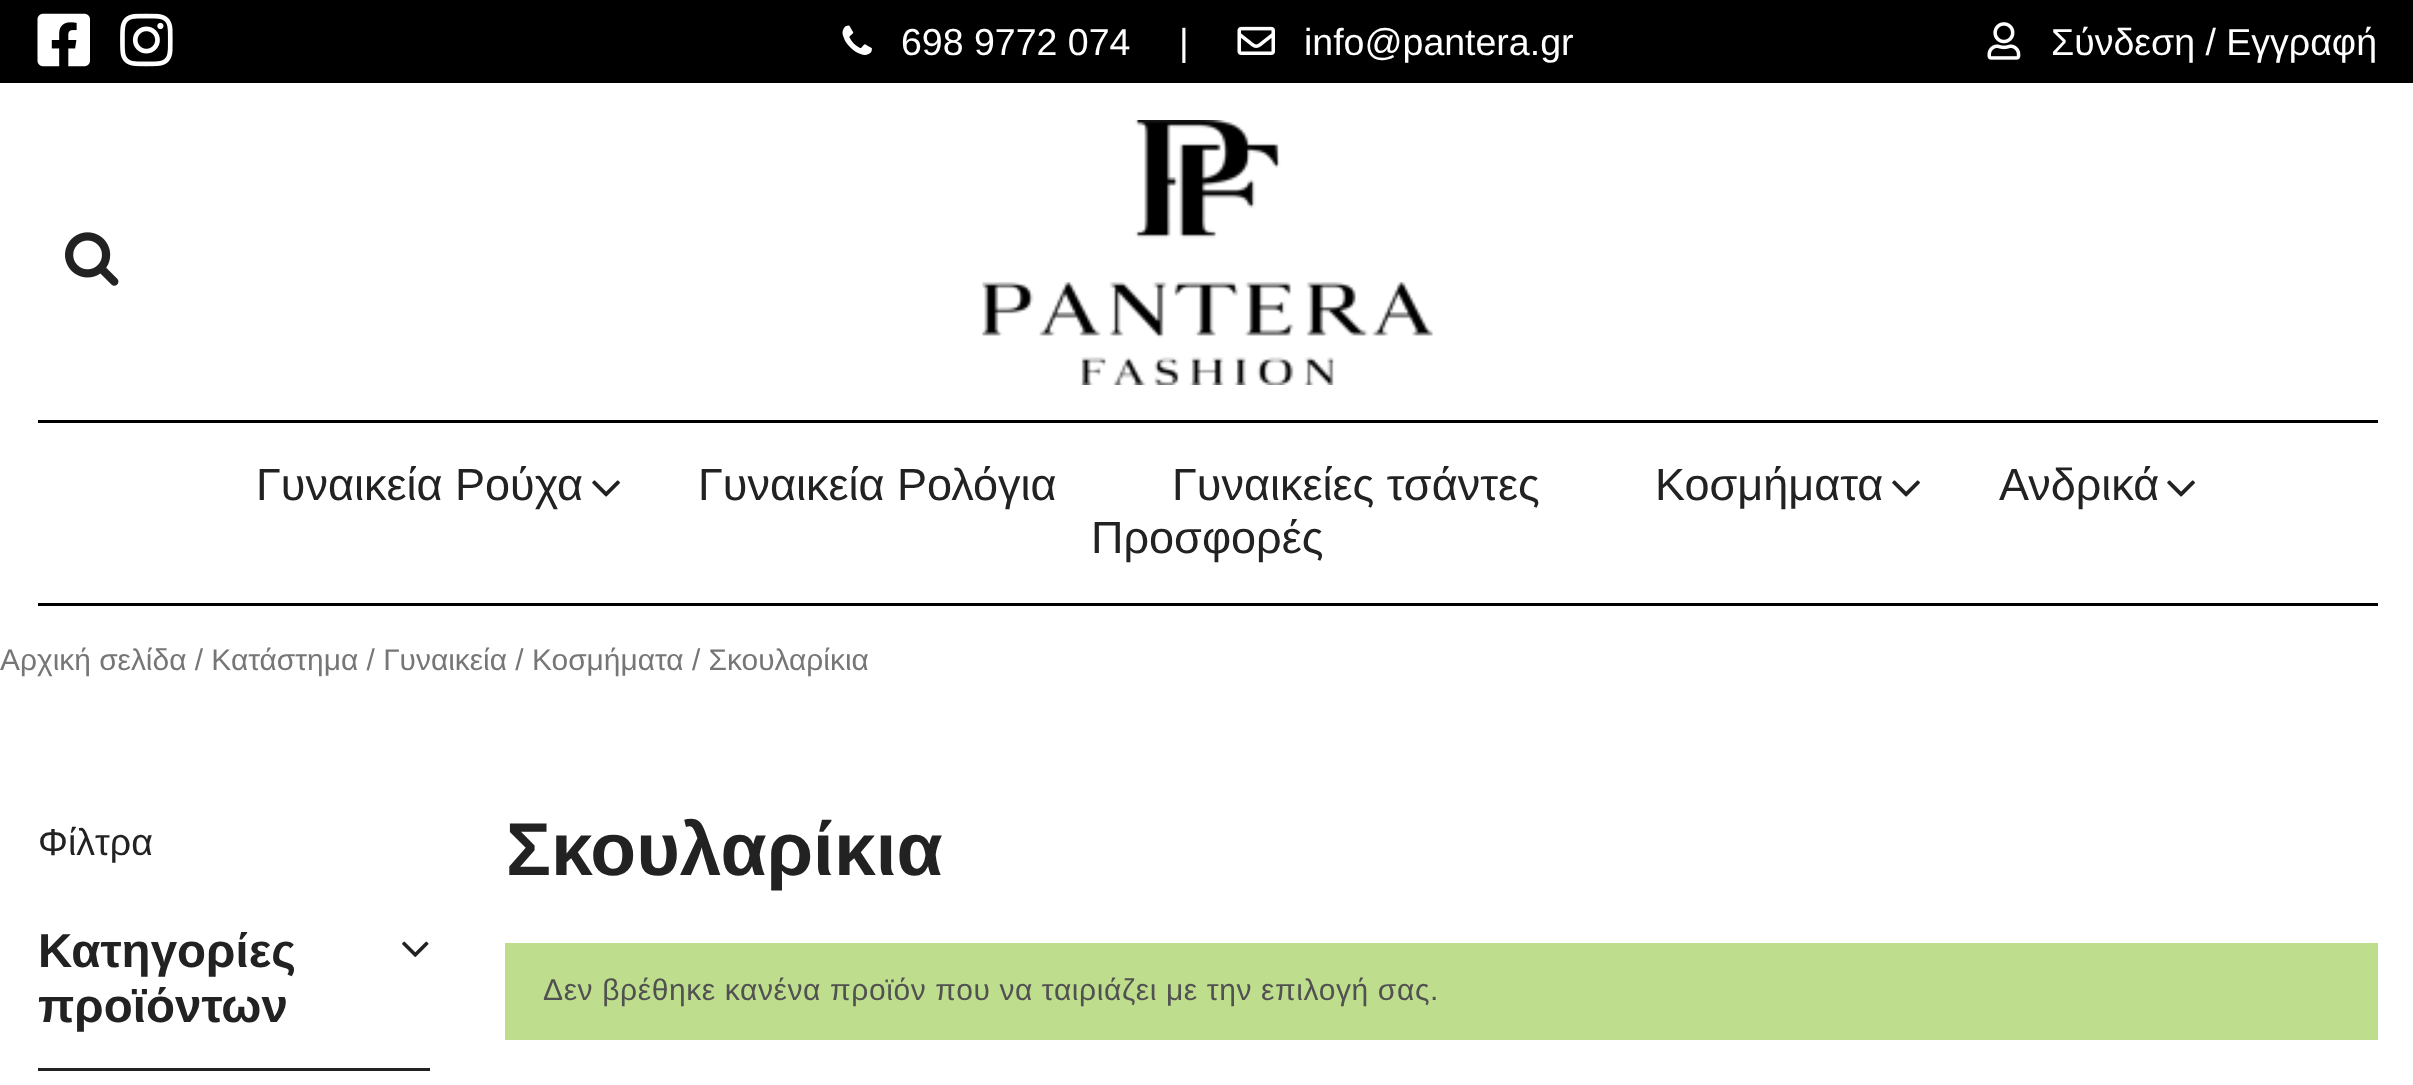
async function draw(canvas) {
  canvas.width = 2413
  canvas.height = 1085
  const ctx = canvas.getContext('2d')
  ctx.miterLimit = 4
  ctx.fontKerning = 'normal'
  async function loadImage(src) {
    const img = new Image()
    img.src = src
    await img.decode()
    return img
  }

  ctx.fillStyle = '#fff'
  ctx.fillRect(0, 0, 2413, 1085)
  ctx.fillStyle = '#000'
  ctx.fillRect(0, 0, 2413, 83)
  ctx.drawImage(await loadImage('image0.png'), 37, 13, 53, 54)
  ctx.drawImage(await loadImage('image1.png'), 120, 13, 53, 54)
  ctx.drawImage(await loadImage('image2.png'), 842, 25, 30, 30)
  ctx.font = '37.5px Liberation Sans'
  ctx.fillStyle = '#fff'
  ctx.fillText('698 9772 074', 901, 55)
  ctx.fillText('|', 1179, 55)
  ctx.drawImage(await loadImage('image3.png'), 1237, 26, 38, 29)
  ctx.fillText('info@pantera.gr', 1304, 55)
  ctx.drawImage(await loadImage('image4.png'), 1987, 22, 34, 38)
  ctx.fillText('Σύνδεση / Εγγραφή', 2051, 55)
  ctx.drawImage(await loadImage('image5.png'), 65, 232, 54, 54)
  ctx.drawImage(await loadImage('image6.png'), 982, 120, 451, 265)
  ctx.fillStyle = '#000'
  ctx.fillRect(38, 420, 2340, 3)
  ctx.fillRect(38, 603, 2340, 3)
  ctx.font = '45px Liberation Sans'
  ctx.fillStyle = '#222'
  ctx.fillText('Γυναικεία Ρούχα', 256, 500)
  ctx.drawImage(await loadImage('image7.png'), 592, 480, 28, 17)
  ctx.fillText('Γυναικεία Ρολόγια', 698, 500)
  ctx.fillText('Γυναικείες τσάντες', 1172, 500)
  ctx.fillText('Κοσμήματα', 1655, 500)
  ctx.drawImage(await loadImage('image7.png'), 1892, 480, 28, 17)
  ctx.fillText('Ανδρικά', 1999, 500)
  ctx.drawImage(await loadImage('image7.png'), 2167, 480, 28, 17)
  ctx.fillText('Προσφορές', 1091, 553)
  ctx.font = '29.9px Liberation Sans'
  ctx.fillStyle = '#767676'
  ctx.fillText('Αρχική σελίδα / Κατάστημα / Γυναικεία / Κοσμήματα / Σκουλαρίκια', 0, 670)
  ctx.font = '37.5px Liberation Sans'
  ctx.fillStyle = '#222'
  ctx.fillText('Φίλτρα', 38, 855)
  ctx.fillRect(38, 1068, 392, 3)
  ctx.font = 'bold 47.5px Liberation Sans'
  ctx.fillText('Κατηγορίες', 38, 967)
  ctx.drawImage(await loadImage('image8.png'), 402, 941, 27, 16)
  ctx.fillText('προϊόντων', 38, 1022)
  ctx.font = 'bold 75px Liberation Sans'
  ctx.fillText('Σκουλαρίκια', 506, 875)
  ctx.fillStyle = '#bede8e'
  ctx.fillRect(505, 943, 1873, 97)
  ctx.letterSpacing = '0.6px'
  ctx.font = '30px Liberation Sans'
  ctx.fillStyle = '#515151'
  ctx.fillText('Δεν βρέθηκε κανένα προϊόν που να ταιριάζει με την επιλογή σας.', 543, 1000)
}

draw(document.querySelector('canvas'))
